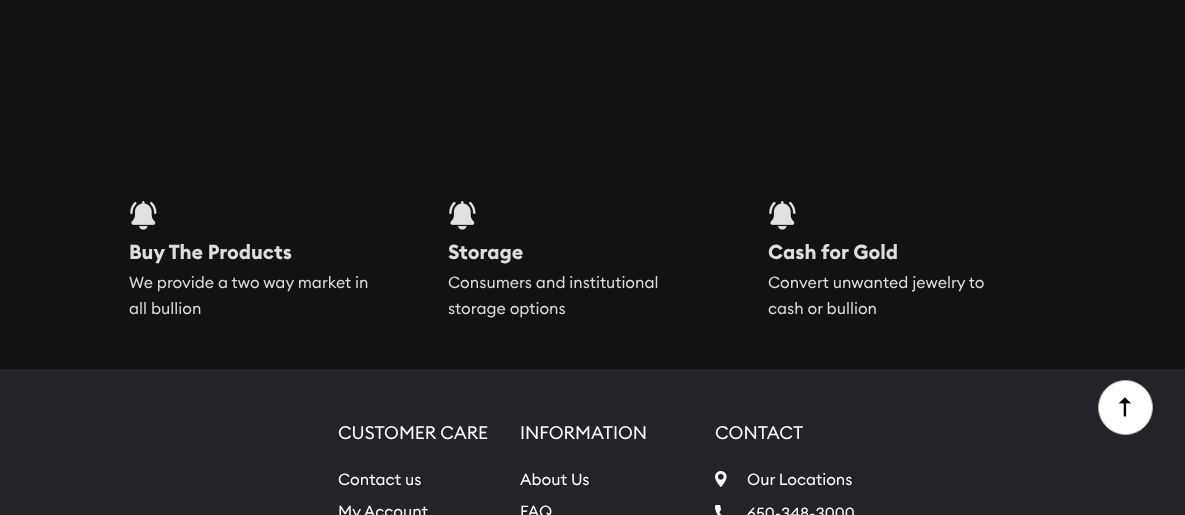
async function draw(canvas) {
  canvas.width = 1185
  canvas.height = 515
  const ctx = canvas.getContext('2d')
  ctx.miterLimit = 4
  ctx.fontKerning = 'normal'
  async function loadImage(src) {
    const img = new Image()
    img.src = src
    await img.decode()
    return img
  }

  ctx.fillStyle = '#121212'
  ctx.fillRect(0, 0, 1185, 515)
  ctx.drawImage(await loadImage('image0.png'), 130, 201, 27, 29)
  ctx.font = 'bold 20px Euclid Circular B'
  ctx.fillStyle = '#ddd'
  ctx.fillText('Buy The Products', 129, 259)
  ctx.font = '16px Euclid Circular B'
  ctx.fillText('We provide a two way market in', 129, 288)
  ctx.fillText('all bullion', 129, 314)
  ctx.drawImage(await loadImage('image0.png'), 449, 201, 27, 29)
  ctx.font = 'bold 20px Euclid Circular B'
  ctx.fillText('Storage', 448, 259)
  ctx.font = '16px Euclid Circular B'
  ctx.fillText('Consumers and institutional', 448, 288)
  ctx.fillText('storage options', 448, 314)
  ctx.drawImage(await loadImage('image0.png'), 769, 201, 27, 29)
  ctx.font = 'bold 20px Euclid Circular B'
  ctx.fillText('Cash for Gold', 768, 259)
  ctx.font = '16px Euclid Circular B'
  ctx.fillText('Convert unwanted jewelry to', 768, 288)
  ctx.fillText('cash or bullion', 768, 314)
  ctx.fillStyle = '#232428'
  ctx.fillRect(0, 369, 1185, 146)
  ctx.fillStyle = '#fff'
  ctx.beginPath()
  ctx.arc(1125.5, 407.5, 27, 0, 2 * Math.PI)
  ctx.fill()
  ctx.strokeStyle = '#b3b3b3'
  ctx.stroke()
  ctx.drawImage(await loadImage('image1.png'), 1118, 397, 13, 20)
  ctx.font = '18px Euclid Circular B'
  ctx.fillText('CUSTOMER CARE', 338, 439)
  ctx.font = '16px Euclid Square'
  ctx.fillText('Contact us', 338, 485)
  ctx.fillText('My Account', 338, 517)
  ctx.font = '18px Euclid Circular B'
  ctx.fillText('INFORMATION', 520, 439)
  ctx.font = '16px Euclid Square'
  ctx.fillText('About Us', 520, 485)
  ctx.fillText('FAQ', 520, 517)
  ctx.font = '18px Euclid Circular B'
  ctx.fillText('CONTACT', 715, 439)
  ctx.drawImage(await loadImage('image2.png'), 715, 471, 12, 16)
  ctx.font = '16px Euclid Circular B'
  ctx.fillText('Our Locations', 747, 485)
  ctx.drawImage(await loadImage('image3.png'), 715, 505, 7, 10)
  ctx.fillText('650-348-3000', 747, 519)
}

draw(document.querySelector('canvas'))
